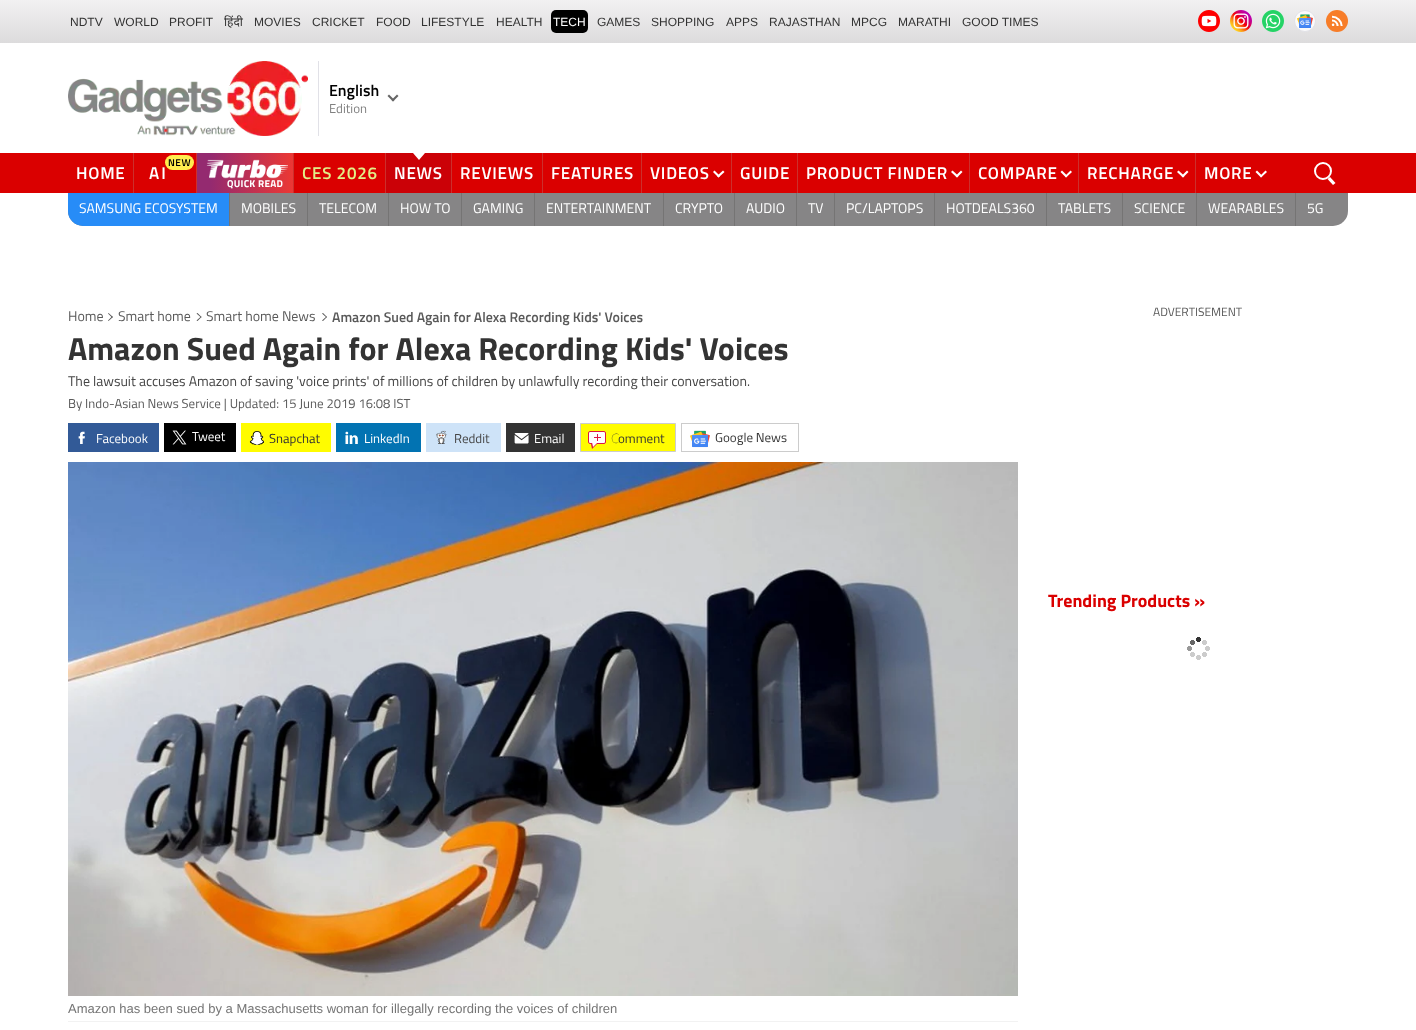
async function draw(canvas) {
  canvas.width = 1416
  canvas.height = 1030
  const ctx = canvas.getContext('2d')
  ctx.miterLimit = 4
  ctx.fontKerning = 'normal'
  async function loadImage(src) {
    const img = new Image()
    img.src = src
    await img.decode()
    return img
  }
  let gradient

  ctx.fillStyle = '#fff'
  ctx.fillRect(0, 0, 1416, 1030)
  gradient = ctx.createLinearGradient(708, 0, 708, 43)
  gradient.addColorStop(0, '#f2f1f2')
  gradient.addColorStop(1, '#dcdbdc')
  ctx.fillStyle = gradient
  ctx.fillRect(0, 0, 1416, 43)
  ctx.font = '12px Liberation Sans'
  ctx.fillStyle = '#333'
  ctx.fillText('NDTV', 70, 26)
  ctx.fillText('WORLD', 114, 26)
  ctx.fillText('PROFIT', 169, 26)
  ctx.font = '12px Noto Sans'
  ctx.fillText('हिंदी', 224, 26)
  ctx.font = '12px Liberation Sans'
  ctx.fillText('MOVIES', 254, 26)
  ctx.fillText('CRICKET', 312, 26)
  ctx.fillText('FOOD', 376, 26)
  ctx.fillText('LIFESTYLE', 421, 26)
  ctx.fillText('HEALTH', 496, 26)
  ctx.fillStyle = '#000'
  ctx.beginPath()
  ctx.roundRect(551, 10, 37, 23, 5)
  ctx.fill()
  ctx.fillStyle = '#fff'
  ctx.fillText('TECH', 553, 26)
  ctx.fillStyle = '#333'
  ctx.fillText('GAMES', 597, 26)
  ctx.fillText('SHOPPING', 651, 26)
  ctx.fillText('APPS', 726, 26)
  ctx.fillText('RAJASTHAN', 769, 26)
  ctx.fillText('MPCG', 851, 26)
  ctx.fillText('MARATHI', 898, 26)
  ctx.fillText('GOOD TIMES', 962, 26)
  ctx.drawImage(await loadImage('image0.png'), 1198, 10, 22, 22)
  ctx.drawImage(await loadImage('image1.png'), 1230, 10, 22, 22)
  ctx.drawImage(await loadImage('image2.png'), 1262, 10, 22, 22)
  ctx.fillStyle = '#fbfbfb'
  ctx.beginPath()
  ctx.arc(1305, 21, 10.5, 0, 2 * Math.PI)
  ctx.fill()
  ctx.strokeStyle = '#e1e1e7'
  ctx.stroke()
  ctx.drawImage(await loadImage('image3.png'), 1297, 14, 16, 14)
  ctx.fillStyle = '#f77d29'
  ctx.beginPath()
  ctx.arc(1337, 21, 11, 0, 2 * Math.PI)
  ctx.fill()
  ctx.drawImage(await loadImage('image4.png'), 1331, 15, 12, 11)
  ctx.fillStyle = '#e1e1e7'
  ctx.fillRect(318, 61, 1, 75)
  ctx.drawImage(await loadImage('image5.png'), 68, 61, 240, 75)
  ctx.font = '600 16px Titillium Web'
  ctx.fillStyle = '#000'
  ctx.fillText('English', 329, 96)
  ctx.font = '13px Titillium'
  ctx.fillStyle = '#808080'
  ctx.fillText('Edition', 329, 113)
  ctx.fillStyle = '#666'
  ctx.beginPath()
  ctx.moveTo(398.5, 96)
  ctx.lineTo(393, 101.5)
  ctx.lineTo(391.5, 100)
  ctx.lineTo(397, 94.5)
  ctx.closePath()
  ctx.fill()
  ctx.beginPath()
  ctx.moveTo(394.5, 100)
  ctx.lineTo(393, 101.5)
  ctx.lineTo(387.5, 96)
  ctx.lineTo(389, 94.5)
  ctx.closePath()
  ctx.fill()
  ctx.fillStyle = '#da0000'
  ctx.fillRect(0, 153, 1416, 40)
  ctx.fillStyle = '#cc2f2c'
  ctx.fillRect(133, 153, 1, 40)
  ctx.letterSpacing = '0.75px'
  ctx.font = '600 17px Titillium Web'
  ctx.fillStyle = '#fff'
  ctx.fillText('HOME', 76, 179)
  ctx.fillStyle = '#cc2f2c'
  ctx.fillRect(196, 153, 1, 40)
  ctx.fillStyle = '#ffed4f'
  ctx.beginPath()
  ctx.roundRect(165, 155, 29, 15, 7.5)
  ctx.fill()
  ctx.letterSpacing = '0.5px'
  ctx.font = '600 10px Titillium Web'
  ctx.fillStyle = '#000'
  ctx.fillText('NEW', 168, 166)
  ctx.letterSpacing = '2px'
  ctx.font = '600 17px Titillium Web'
  ctx.fillStyle = '#fff'
  ctx.fillText('AI', 149, 179)
  ctx.fillStyle = '#cc2f2c'
  ctx.fillRect(385, 153, 1, 40)
  ctx.letterSpacing = '0.75px'
  ctx.fillStyle = '#e2ef88'
  ctx.fillText('CES 2026', 302, 179)
  ctx.fillStyle = '#cb0107'
  ctx.fillRect(386, 153, 65, 40)
  ctx.fillStyle = '#cc2f2c'
  ctx.fillRect(451, 153, 1, 40)
  ctx.fillStyle = '#fff'
  ctx.beginPath()
  ctx.moveTo(413, 153)
  ctx.lineTo(425, 153)
  ctx.lineTo(419, 160)
  ctx.closePath()
  ctx.fill()
  ctx.fillText('NEWS', 394, 179)
  ctx.fillStyle = '#cc2f2c'
  ctx.fillRect(542, 153, 1, 40)
  ctx.fillStyle = '#fff'
  ctx.fillText('REVIEWS', 460, 179)
  ctx.fillStyle = '#cc2f2c'
  ctx.fillRect(641, 153, 1, 40)
  ctx.fillStyle = '#fff'
  ctx.fillText('FEATURES', 551, 179)
  ctx.fillStyle = '#cc2f2c'
  ctx.fillRect(731, 153, 1, 40)
  ctx.fillStyle = '#fff'
  ctx.fillText('VIDEOS', 650, 179)
  ctx.beginPath()
  ctx.moveTo(724.5, 172)
  ctx.lineTo(718.5, 177.5)
  ctx.lineTo(717, 176)
  ctx.lineTo(723, 170.5)
  ctx.closePath()
  ctx.fill()
  ctx.beginPath()
  ctx.moveTo(720, 176)
  ctx.lineTo(718.5, 177.5)
  ctx.lineTo(713, 172)
  ctx.lineTo(714.5, 170.5)
  ctx.closePath()
  ctx.fill()
  ctx.fillStyle = '#cc2f2c'
  ctx.fillRect(797, 153, 1, 40)
  ctx.fillStyle = '#fff'
  ctx.fillText('GUIDE', 740, 179)
  ctx.fillStyle = '#cc2f2c'
  ctx.fillRect(969, 153, 1, 40)
  ctx.fillStyle = '#fff'
  ctx.fillText('PRODUCT FINDER', 806, 179)
  ctx.beginPath()
  ctx.moveTo(962.5, 172)
  ctx.lineTo(957, 177.5)
  ctx.lineTo(955.5, 176)
  ctx.lineTo(961, 170.5)
  ctx.closePath()
  ctx.fill()
  ctx.beginPath()
  ctx.moveTo(958.5, 176)
  ctx.lineTo(957, 177.5)
  ctx.lineTo(951, 172)
  ctx.lineTo(952.5, 170.5)
  ctx.closePath()
  ctx.fill()
  ctx.fillStyle = '#cc2f2c'
  ctx.fillRect(1078, 153, 1, 40)
  ctx.fillStyle = '#fff'
  ctx.fillText('COMPARE', 978, 179)
  ctx.beginPath()
  ctx.moveTo(1072, 172)
  ctx.lineTo(1066, 177.5)
  ctx.lineTo(1065, 176)
  ctx.lineTo(1070.5, 170.5)
  ctx.closePath()
  ctx.fill()
  ctx.beginPath()
  ctx.moveTo(1067.5, 176)
  ctx.lineTo(1066, 177.5)
  ctx.lineTo(1060.5, 172)
  ctx.lineTo(1062, 170.5)
  ctx.closePath()
  ctx.fill()
  ctx.fillStyle = '#cc2f2c'
  ctx.fillRect(1195, 153, 1, 40)
  ctx.fillStyle = '#fff'
  ctx.fillText('RECHARGE', 1087, 179)
  ctx.beginPath()
  ctx.moveTo(1188.5, 172)
  ctx.lineTo(1183, 177.5)
  ctx.lineTo(1181.5, 176)
  ctx.lineTo(1187, 170.5)
  ctx.closePath()
  ctx.fill()
  ctx.beginPath()
  ctx.moveTo(1184.5, 176)
  ctx.lineTo(1183, 177.5)
  ctx.lineTo(1177, 172)
  ctx.lineTo(1178.5, 170.5)
  ctx.closePath()
  ctx.fill()
  ctx.fillText('MORE', 1204, 179)
  ctx.beginPath()
  ctx.moveTo(1267, 172)
  ctx.lineTo(1261, 177.5)
  ctx.lineTo(1260, 176)
  ctx.lineTo(1265.5, 170.5)
  ctx.closePath()
  ctx.fill()
  ctx.beginPath()
  ctx.moveTo(1262.5, 176)
  ctx.lineTo(1261, 177.5)
  ctx.lineTo(1255.5, 172)
  ctx.lineTo(1257, 170.5)
  ctx.closePath()
  ctx.fill()
  gradient = ctx.createLinearGradient(197, 173, 294, 173)
  gradient.addColorStop(0.14, '#942a70')
  gradient.addColorStop(1, '#ed3833')
  ctx.fillStyle = gradient
  ctx.fillRect(197, 153, 96, 40)
  ctx.fillStyle = '#cc2f2c'
  ctx.fillRect(293, 153, 1, 40)
  ctx.drawImage(await loadImage('image6.png'), 206, 159, 82, 20)
  ctx.letterSpacing = '0.25px'
  ctx.font = 'bold 10px Titillium'
  ctx.fillStyle = '#fff'
  ctx.fillText('QUICK READ', 227, 187)
  ctx.beginPath()
  ctx.arc(1323, 171, 8, 0, 2 * Math.PI)
  ctx.strokeStyle = '#fff'
  ctx.lineWidth = 2
  ctx.stroke()
  ctx.beginPath()
  ctx.moveTo(1327.5, 179)
  ctx.lineTo(1330, 177)
  ctx.lineTo(1335.5, 183)
  ctx.lineTo(1333, 185)
  ctx.closePath()
  ctx.fill()
  ctx.fillStyle = '#868586'
  ctx.beginPath()
  ctx.roundRect(68, 193, 1280, 33, [0, 0, 15, 15])
  ctx.fill()
  ctx.fillStyle = '#278cf7'
  ctx.beginPath()
  ctx.roundRect(68, 193, 162, 33, [0, 0, 0, 15])
  ctx.fill()
  ctx.fillStyle = '#757474'
  ctx.fillRect(229, 193, 1, 33)
  ctx.letterSpacing = '0px'
  ctx.font = '14px Titillium'
  ctx.fillStyle = '#fff'
  ctx.fillText('SAMSUNG ECOSYSTEM', 79, 213)
  ctx.fillStyle = '#757474'
  ctx.fillRect(307, 193, 1, 33)
  ctx.fillStyle = '#fff'
  ctx.fillText('MOBILES', 241, 213)
  ctx.fillStyle = '#757474'
  ctx.fillRect(388, 193, 1, 33)
  ctx.fillStyle = '#fff'
  ctx.fillText('TELECOM', 319, 213)
  ctx.fillStyle = '#757474'
  ctx.fillRect(461, 193, 1, 33)
  ctx.fillStyle = '#fff'
  ctx.fillText('HOW TO', 400, 213)
  ctx.fillStyle = '#757474'
  ctx.fillRect(534, 193, 1, 33)
  ctx.fillStyle = '#fff'
  ctx.fillText('GAMING', 473, 213)
  ctx.fillStyle = '#757474'
  ctx.fillRect(663, 193, 1, 33)
  ctx.fillStyle = '#fff'
  ctx.fillText('ENTERTAINMENT', 546, 213)
  ctx.fillStyle = '#757474'
  ctx.fillRect(734, 193, 1, 33)
  ctx.fillStyle = '#fff'
  ctx.fillText('CRYPTO', 675, 213)
  ctx.fillStyle = '#757474'
  ctx.fillRect(796, 193, 1, 33)
  ctx.fillStyle = '#fff'
  ctx.fillText('AUDIO', 746, 213)
  ctx.fillStyle = '#757474'
  ctx.fillRect(834, 193, 1, 33)
  ctx.fillStyle = '#fff'
  ctx.fillText('TV', 808, 213)
  ctx.fillStyle = '#757474'
  ctx.fillRect(934, 193, 1, 33)
  ctx.fillStyle = '#fff'
  ctx.fillText('PC/LAPTOPS', 846, 213)
  ctx.fillStyle = '#757474'
  ctx.fillRect(1046, 193, 1, 33)
  ctx.fillStyle = '#fff'
  ctx.fillText('HOTDEALS360', 946, 213)
  ctx.fillStyle = '#757474'
  ctx.fillRect(1122, 193, 1, 33)
  ctx.fillStyle = '#fff'
  ctx.fillText('TABLETS', 1058, 213)
  ctx.fillStyle = '#757474'
  ctx.fillRect(1196, 193, 1, 33)
  ctx.fillStyle = '#fff'
  ctx.fillText('SCIENCE', 1134, 213)
  ctx.fillStyle = '#757474'
  ctx.fillRect(1295, 193, 1, 33)
  ctx.fillStyle = '#fff'
  ctx.fillText('WEARABLES', 1208, 213)
  ctx.fillText('5G', 1307, 213)
  ctx.fillStyle = '#595959'
  ctx.fillText('Home', 68, 321)
  ctx.fillStyle = '#545454'
  ctx.beginPath()
  ctx.moveTo(108.5, 313)
  ctx.lineTo(113, 317)
  ctx.lineTo(112, 317.5)
  ctx.lineTo(108, 313.5)
  ctx.closePath()
  ctx.fill()
  ctx.beginPath()
  ctx.moveTo(112, 316.5)
  ctx.lineTo(113, 317)
  ctx.lineTo(108.5, 321)
  ctx.lineTo(108, 320.5)
  ctx.closePath()
  ctx.fill()
  ctx.fillStyle = '#595959'
  ctx.fillText('Smart home', 118, 321)
  ctx.fillStyle = '#545454'
  ctx.beginPath()
  ctx.moveTo(197.5, 313)
  ctx.lineTo(201.5, 317)
  ctx.lineTo(201, 317.5)
  ctx.lineTo(196.5, 313.5)
  ctx.closePath()
  ctx.fill()
  ctx.beginPath()
  ctx.moveTo(201, 316.5)
  ctx.lineTo(201.5, 317)
  ctx.lineTo(197.5, 321)
  ctx.lineTo(196.5, 320.5)
  ctx.closePath()
  ctx.fill()
  ctx.fillStyle = '#595959'
  ctx.fillText('Smart home News', 206, 321)
  ctx.fillStyle = '#545454'
  ctx.beginPath()
  ctx.moveTo(323, 313)
  ctx.lineTo(327, 317)
  ctx.lineTo(326.5, 317.5)
  ctx.lineTo(322, 313.5)
  ctx.closePath()
  ctx.fill()
  ctx.beginPath()
  ctx.moveTo(326.5, 316.5)
  ctx.lineTo(327, 317)
  ctx.lineTo(323, 321)
  ctx.lineTo(322, 320.5)
  ctx.closePath()
  ctx.fill()
  ctx.font = '600 14px Titillium Web'
  ctx.fillStyle = '#595959'
  ctx.fillText('Amazon Sued Again for Alexa Recording Kids\' Voices', 332, 322)
  ctx.font = 'bold 32px Titillium'
  ctx.fillStyle = '#333'
  ctx.fillText('Amazon Sued Again for Alexa Recording Kids\' Voices', 68, 360)
  ctx.font = '14px Titillium'
  ctx.fillStyle = '#454545'
  ctx.fillText('The lawsuit accuses Amazon of saving \'voice prints\' of millions of children by unlawfully recording their conversation.', 68, 386)
  ctx.font = '13px Titillium'
  ctx.fillStyle = '#595959'
  ctx.fillText('By Indo-Asian News Service | Updated: 15 June 2019 16:08 IST', 68, 408)
  ctx.fillStyle = '#325a97'
  ctx.fillRect(68, 423, 91, 29)
  ctx.drawImage(await loadImage('image7.png'), 78, 431, 7, 13)
  ctx.fillStyle = '#fff'
  ctx.fillText('Facebook', 96, 443)
  ctx.fillStyle = '#000'
  ctx.fillRect(164, 423, 72, 29)
  ctx.drawImage(await loadImage('image8.png'), 172, 430, 15, 15)
  ctx.fillStyle = '#fff'
  ctx.fillText('Tweet', 192, 441)
  ctx.fillStyle = '#fffc00'
  ctx.fillRect(241, 423, 90, 29)
  ctx.drawImage(await loadImage('image9.png'), 249, 431, 15, 14)
  ctx.fillStyle = '#333'
  ctx.fillText('Snapchat', 269, 443)
  ctx.fillStyle = '#0273b2'
  ctx.fillRect(336, 423, 85, 29)
  ctx.drawImage(await loadImage('image10.png'), 345, 431, 13, 13)
  ctx.fillStyle = '#fff'
  ctx.fillText('LinkedIn', 364, 443)
  ctx.fillStyle = '#cee3f8'
  ctx.fillRect(426, 423, 75, 29)
  ctx.drawImage(await loadImage('image11.png'), 436, 430, 11, 14)
  ctx.fillStyle = '#454545'
  ctx.fillText('Reddit', 454, 443)
  ctx.fillStyle = '#333'
  ctx.fillRect(506, 423, 69, 29)
  ctx.drawImage(await loadImage('image12.png'), 514, 433, 15, 11)
  ctx.fillStyle = '#fff'
  ctx.fillText('Email', 534, 443)
  ctx.fillStyle = '#fffc00'
  ctx.beginPath()
  ctx.rect(580.5, 423.5, 95, 28)
  ctx.fill()
  ctx.strokeStyle = '#ccc'
  ctx.lineWidth = 1
  ctx.stroke()
  ctx.fillStyle = '#fff'
  ctx.beginPath()
  ctx.roundRect(588.5, 431.5, 17, 12, 1.5)
  ctx.fill()
  ctx.strokeStyle = '#dc1643'
  ctx.stroke()
  ctx.fillStyle = '#dc1643'
  ctx.beginPath()
  ctx.moveTo(591, 444)
  ctx.lineTo(597, 444)
  ctx.lineTo(592, 449)
  ctx.closePath()
  ctx.fill()
  ctx.fillStyle = '#fff'
  ctx.beginPath()
  ctx.moveTo(592, 442)
  ctx.lineTo(598, 442)
  ctx.lineTo(593, 447)
  ctx.closePath()
  ctx.fill()
  ctx.fillStyle = '#dd1543'
  ctx.fillRect(594, 437, 7, 1)
  ctx.fillRect(597, 434, 1, 7)
  ctx.font = '100 13px Noto Sans'
  ctx.fillStyle = '#333'
  ctx.fillText('C', 611, 443)
  ctx.font = '13px Titillium'
  ctx.fillText('omment', 618, 443)
  ctx.strokeStyle = '#ccc'
  ctx.strokeRect(681.5, 423.5, 117, 28)
  ctx.drawImage(await loadImage('image13.png'), 690, 430, 20, 18)
  ctx.fillText('Google News', 715, 442)
  ctx.drawImage(await loadImage('image14.png'), 68, 462, 950, 534)
  ctx.fillStyle = '#f2f2f2'
  ctx.fillRect(68, 1021, 950, 1)
  ctx.font = '13px Liberation Sans'
  ctx.fillStyle = '#757575'
  ctx.fillText('Amazon has been sued by a Massachusetts woman for illegally recording the voices of children', 68, 1013)
  ctx.font = '12px Titillium'
  ctx.fillStyle = '#595959'
  ctx.fillText('ADVERTISEMENT', 1153, 316)
  ctx.font = 'bold 18px Titillium'
  ctx.fillStyle = '#da0000'
  ctx.fillText('Trending Products »', 1048, 607)
  ctx.drawImage(await loadImage('image15.png'), 1187, 637, 23, 23)
}

draw(document.querySelector('canvas'))
